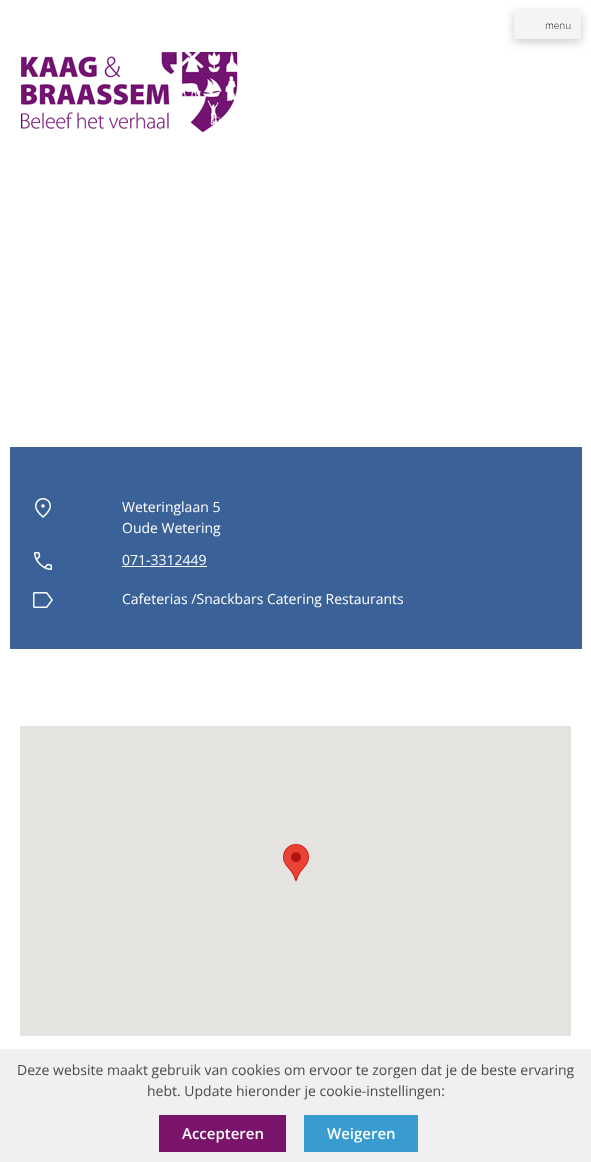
async function draw(canvas) {
  canvas.width = 591
  canvas.height = 1162
  const ctx = canvas.getContext('2d')
  ctx.miterLimit = 4
  ctx.fontKerning = 'normal'
  async function loadImage(src) {
    const img = new Image()
    img.src = src
    await img.decode()
    return img
  }

  ctx.fillStyle = '#fff'
  ctx.fillRect(0, 0, 591, 1162)
  ctx.fillStyle = '#0000001a'
  ctx.filter = 'blur(5px)'
  ctx.beginPath()
  ctx.rect(514, 12, 67, 29)
  ctx.fill()
  ctx.filter = 'none'
  ctx.filter = 'blur(5px)'
  ctx.beginPath()
  ctx.rect(514, 14, 67, 29)
  ctx.fill()
  ctx.filter = 'none'
  ctx.fillStyle = '#f4f4f4'
  ctx.fillRect(514, 10, 67, 29)
  ctx.font = '300 10px Open Sans'
  ctx.fillStyle = '#222'
  ctx.fillText('menu', 545, 29)
  ctx.drawImage(await loadImage('image0.png'), 21, 52, 217, 80)
  ctx.fillStyle = '#3a6198'
  ctx.fillRect(10, 447, 572, 202)
  ctx.drawImage(await loadImage('image1.png'), 35, 498, 16, 20)
  ctx.font = '14px Open Sans'
  ctx.fillStyle = '#fff'
  ctx.fillText('Weteringlaan 5', 122, 512)
  ctx.fillText('Oude Wetering', 122, 533)
  ctx.drawImage(await loadImage('image2.png'), 34, 552, 18, 18)
  ctx.fillText('071-3312449', 122, 565)
  ctx.fillRect(122, 566, 85, 1)
  ctx.drawImage(await loadImage('image3.png'), 33, 592, 20, 16)
  ctx.fillText('Cafeterias /Snackbars Catering Restaurants', 122, 604)
  ctx.fillStyle = '#e5e3df'
  ctx.fillRect(20, 726, 551, 310)
  ctx.drawImage(await loadImage('image4.png'), 283, 844, 26, 37)
  ctx.fillStyle = '#f0f0f0'
  ctx.fillRect(0, 1049, 591, 113)
  ctx.fillStyle = '#4a4a4a'
  ctx.fillText('Deze website maakt gebruik van cookies om ervoor te zorgen dat je de beste ervaring', 17, 1075)
  ctx.fillText('hebt. Update hieronder je cookie-instellingen:', 147, 1096)
  ctx.fillStyle = '#79146a'
  ctx.fillRect(159, 1115, 127, 37)
  ctx.font = '600 15px Open Sans'
  ctx.fillStyle = '#fff'
  ctx.fillText('Accepteren', 182, 1139)
  ctx.fillStyle = '#399cd1'
  ctx.fillRect(304, 1115, 114, 37)
  ctx.fillStyle = '#fff'
  ctx.fillText('Weigeren', 327, 1139)
}

draw(document.querySelector('canvas'))
